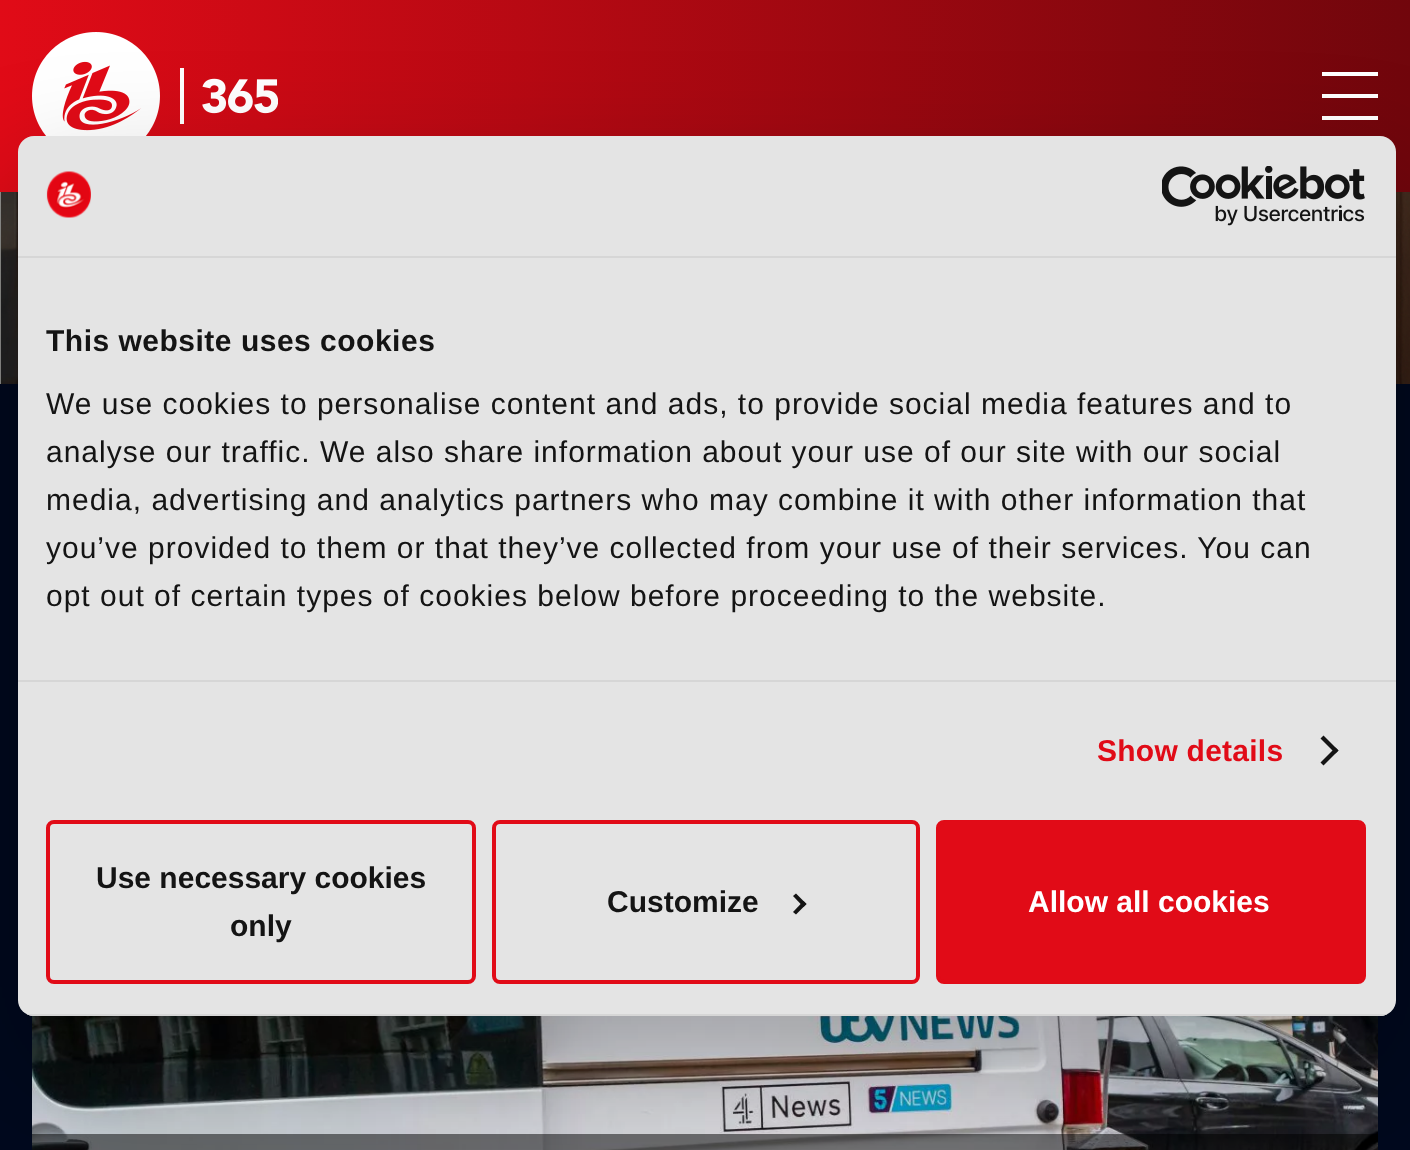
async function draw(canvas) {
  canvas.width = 1410
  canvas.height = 1150
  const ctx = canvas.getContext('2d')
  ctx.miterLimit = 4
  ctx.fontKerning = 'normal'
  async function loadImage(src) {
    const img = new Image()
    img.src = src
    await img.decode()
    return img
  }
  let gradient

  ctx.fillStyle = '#00091e'
  ctx.fillRect(0, 0, 1410, 1150)
  gradient = ctx.createLinearGradient(1410, 96, 0, 96)
  gradient.addColorStop(0, '#71060c')
  gradient.addColorStop(1, '#e10b17')
  ctx.fillStyle = gradient
  ctx.fillRect(0, 0, 1410, 192)
  ctx.drawImage(await loadImage('image0.png'), 32, 32, 246, 104)
  ctx.fillStyle = '#fff'
  ctx.fillRect(1322, 94, 56, 4)
  ctx.fillRect(1322, 72, 56, 4)
  ctx.fillRect(1322, 116, 56, 4)
  ctx.fillStyle = '#8f8f8c'
  ctx.fillRect(0, 192, 1, 192)
  ctx.drawImage(await loadImage('image1.png'), 1, 192, 1409, 192)
  ctx.drawImage(await loadImage('image2.png'), 32, 1015, 1346, 135)
  ctx.fillStyle = '#00000080'
  ctx.fillRect(32, 1134, 1346, 16)
  ctx.fillStyle = '#0000004d'
  ctx.filter = 'blur(68px)'
  ctx.beginPath()
  ctx.roundRect(18, 200, 1378, 880, 16)
  ctx.fill()
  ctx.filter = 'none'
  ctx.fillStyle = '#e4e4e4'
  ctx.beginPath()
  ctx.roundRect(18, 136, 1378, 880, 16)
  ctx.fill()
  ctx.fillStyle = '#d6d6d6'
  ctx.fillRect(18, 256, 1378, 2)
  ctx.drawImage(await loadImage('image3.png'), 46, 171, 45, 47)
  ctx.drawImage(await loadImage('image4.png'), 1162, 166, 203, 60)
  ctx.fillRect(18, 680, 1378, 2)
  ctx.letterSpacing = '0.5px'
  ctx.font = 'bold 30px Liberation Sans'
  ctx.fillStyle = '#141414'
  ctx.fillText('This website uses cookies', 46, 351)
  ctx.letterSpacing = '1px'
  ctx.font = '30px Liberation Sans'
  ctx.fillText('We use cookies to personalise content and ads, to provide social media features and to', 46, 414)
  ctx.fillText('analyse our traffic. We also share information about your use of our site with our social', 46, 462)
  ctx.fillText('media, advertising and analytics partners who may combine it with other information that', 46, 510)
  ctx.fillText('you’ve provided to them or that they’ve collected from your use of their services. You can', 46, 558)
  ctx.fillText('opt out of certain types of cookies below before proceeding to the website.', 46, 606)
  ctx.letterSpacing = '0.25px'
  ctx.font = 'bold 30px Liberation Sans'
  ctx.fillStyle = '#e10b17'
  ctx.fillText('Show details', 1097, 761)
  ctx.fillStyle = '#141414'
  ctx.beginPath()
  ctx.moveTo(1323.5, 735.5)
  ctx.lineTo(1338.5, 750.5)
  ctx.lineTo(1335.5, 753.5)
  ctx.lineTo(1320.5, 738.5)
  ctx.closePath()
  ctx.fill()
  ctx.beginPath()
  ctx.moveTo(1335.5, 747.5)
  ctx.lineTo(1338.5, 750.5)
  ctx.lineTo(1323.5, 765.5)
  ctx.lineTo(1320.5, 762.5)
  ctx.closePath()
  ctx.fill()
  ctx.save()
  ctx.beginPath()
  ctx.roundRect(18, 136, 1378, 880, 16)
  ctx.clip()
  ctx.fillStyle = '#d6d6d6'
  ctx.fillRect(18, 1014, 1378, 2)
  ctx.restore()
  ctx.beginPath()
  ctx.roundRect(48, 822, 426, 160, 6)
  ctx.strokeStyle = '#e10b17'
  ctx.lineWidth = 4
  ctx.stroke()
  ctx.letterSpacing = '0px'
  ctx.fillText('Use necessary cookies', 96, 888)
  ctx.fillText('only', 230, 936)
  ctx.beginPath()
  ctx.roundRect(494, 822, 424, 160, 6)
  ctx.stroke()
  ctx.fillText('Customize', 607, 912)
  ctx.beginPath()
  ctx.moveTo(796, 893.5)
  ctx.lineTo(806.5, 904)
  ctx.lineTo(803.5, 907)
  ctx.lineTo(793, 896)
  ctx.closePath()
  ctx.fill()
  ctx.beginPath()
  ctx.moveTo(803.5, 901)
  ctx.lineTo(806.5, 904)
  ctx.lineTo(796, 914.5)
  ctx.lineTo(793, 912)
  ctx.closePath()
  ctx.fill()
  ctx.fillStyle = '#e10b17'
  ctx.beginPath()
  ctx.roundRect(938, 822, 426, 160, 6)
  ctx.fill()
  ctx.stroke()
  ctx.fillStyle = '#fff'
  ctx.fillText('Allow all cookies', 1028, 912)
}

draw(document.querySelector('canvas'))
